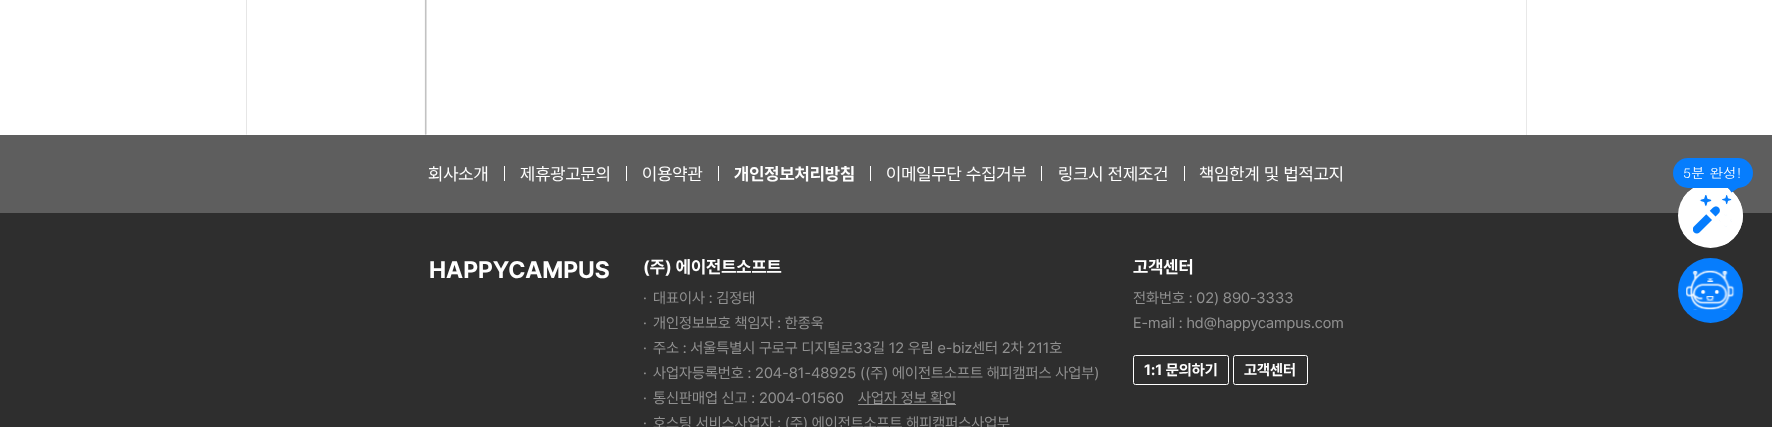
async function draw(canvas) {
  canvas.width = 1772
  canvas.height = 427
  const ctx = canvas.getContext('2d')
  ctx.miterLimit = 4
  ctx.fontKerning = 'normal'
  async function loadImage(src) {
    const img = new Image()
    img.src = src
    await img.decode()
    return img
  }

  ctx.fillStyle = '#fff'
  ctx.fillRect(0, 0, 1772, 427)
  ctx.drawImage(await loadImage('image0.png'), 246, 0, 181, 135)
  ctx.drawImage(await loadImage('image1.png'), 246, 0, 181, 135)
  ctx.fillStyle = '#e8e8e8'
  ctx.fillRect(1526, 0, 1, 135)
  ctx.fillStyle = '#5e5e5e'
  ctx.fillRect(0, 135, 1772, 78)
  ctx.font = '17.5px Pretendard'
  ctx.fillStyle = '#fff'
  ctx.fillText('회사소개', 428, 180)
  ctx.fillRect(504, 166, 1, 15)
  ctx.fillText('제휴광고문의', 520, 180)
  ctx.fillRect(626, 166, 1, 15)
  ctx.fillText('이용약관', 642, 180)
  ctx.fillRect(718, 166, 1, 15)
  ctx.font = 'bold 17.5px Pretendard'
  ctx.fillText('개인정보처리방침', 734, 180)
  ctx.fillRect(870, 166, 1, 15)
  ctx.font = '17.5px Pretendard'
  ctx.fillText('이메일무단 수집거부', 886, 180)
  ctx.fillRect(1041, 166, 1, 15)
  ctx.fillText('링크시 전제조건', 1058, 180)
  ctx.fillRect(1184, 166, 1, 15)
  ctx.fillText('책임한계 및 법적고지', 1199, 180)
  ctx.fillStyle = '#2e2e2e'
  ctx.fillRect(0, 213, 1772, 214)
  ctx.font = 'bold 23.75px Pretendard'
  ctx.fillStyle = '#fff'
  ctx.fillText('HAPPYCAMPUS', 429, 278)
  ctx.font = 'bold 17.5px Pretendard'
  ctx.fillText('(주) 에이전트소프트', 643, 273)
  ctx.font = '15px Pretendard'
  ctx.fillStyle = '#919191'
  ctx.fillText('·', 643, 303)
  ctx.fillText('대표이사 : 김정태', 653, 303)
  ctx.fillText('·', 643, 328)
  ctx.fillText('개인정보보호 책임자 : 한종욱', 653, 328)
  ctx.fillText('·', 643, 353)
  ctx.fillText('주소 : 서울특별시 구로구 디지털로33길 12 우림 e-biz센터 2차 211호', 653, 353)
  ctx.fillText('·', 643, 378)
  ctx.fillText('사업자등록번호 : 204-81-48925 ((주) 에이전트소프트 해피캠퍼스 사업부)', 653, 378)
  ctx.fillText('·', 643, 403)
  ctx.fillText('통신판매업 신고 : 2004-01560', 653, 403)
  ctx.fillRect(858, 404, 98, 1)
  ctx.fillText('사업자 정보 확인', 858, 403)
  ctx.fillText('·', 643, 428)
  ctx.fillText('호스팅 서비스사업자 : (주) 에이전트소프트 해피캠퍼스사업부', 653, 428)
  ctx.font = 'bold 17.5px Pretendard'
  ctx.fillStyle = '#fff'
  ctx.fillText('고객센터', 1133, 273)
  ctx.font = '15px Pretendard'
  ctx.fillStyle = '#919191'
  ctx.fillText('전화번호 : 02) 890-3333', 1133, 303)
  ctx.fillText('E-mail : hd@happycampus.com', 1133, 328)
  ctx.beginPath()
  ctx.roundRect(1133.5, 355.5, 95, 29, 2)
  ctx.strokeStyle = '#fff'
  ctx.stroke()
  ctx.font = 'bold 15px Pretendard'
  ctx.fillStyle = '#fff'
  ctx.fillText('1:1 문의하기', 1144, 375)
  ctx.beginPath()
  ctx.roundRect(1233.5, 355.5, 74, 29, 2)
  ctx.stroke()
  ctx.fillText('고객센터', 1244, 375)
  ctx.beginPath()
  ctx.arc(1710.5, 215.5, 32.5, 0, 2 * Math.PI)
  ctx.fill()
  ctx.save()
  ctx.beginPath()
  ctx.roundRect(1678, 183, 65, 65, 32.5)
  ctx.clip()
  ctx.beginPath()
  ctx.roundRect(1683, 183, 60, 62, [0, 32.5, 0, 0])
  ctx.fill()
  ctx.restore()
  ctx.fillStyle = '#067dfd'
  ctx.beginPath()
  ctx.roundRect(1673, 158, 80, 30, 15)
  ctx.fill()
  ctx.font = '13.75px Dotum'
  ctx.fillStyle = '#fff'
  ctx.fillText('5분 완성!', 1683, 178)
  ctx.fillStyle = '#067dfd'
  ctx.beginPath()
  ctx.moveTo(1731.5, 192.5)
  ctx.lineTo(1721.5, 178)
  ctx.lineTo(1747, 182)
  ctx.closePath()
  ctx.fill()
  ctx.drawImage(await loadImage('image2.png'), 1693, 194, 39, 40)
  ctx.beginPath()
  ctx.arc(1710.5, 290.5, 32.5, 0, 2 * Math.PI)
  ctx.fill()
  ctx.drawImage(await loadImage('image3.png'), 1686, 270, 49, 40)
}

draw(document.querySelector('canvas'))
